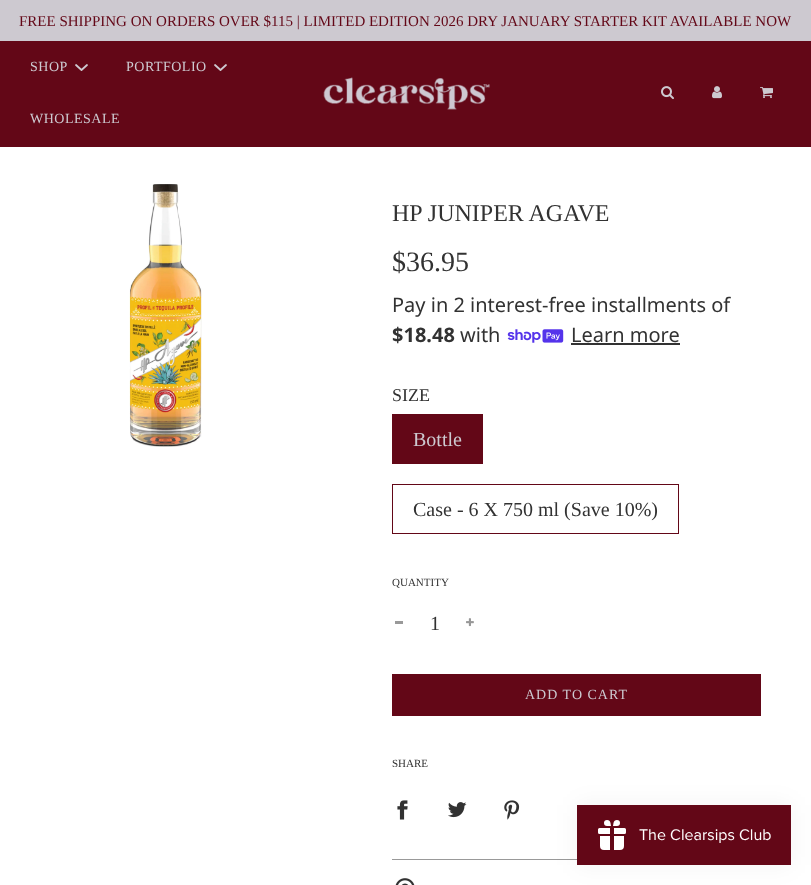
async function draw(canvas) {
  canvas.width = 811
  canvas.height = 885
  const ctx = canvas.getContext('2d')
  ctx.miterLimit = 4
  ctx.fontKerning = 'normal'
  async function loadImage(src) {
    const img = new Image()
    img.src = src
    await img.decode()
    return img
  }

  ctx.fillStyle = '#fff'
  ctx.fillRect(0, 0, 811, 885)
  ctx.fillStyle = '#cdc9d0'
  ctx.fillRect(0, 0, 811, 41)
  ctx.font = '15px Liberation Serif'
  ctx.fillStyle = '#630717'
  ctx.fillText('FREE SHIPPING ON ORDERS OVER $115 | LIMITED EDITION 2026 DRY JANUARY STARTER KIT AVAILABLE NOW', 19, 26)
  ctx.fillRect(0, 41, 811, 106)
  ctx.letterSpacing = '0.5px'
  ctx.font = '14px Liberation Serif'
  ctx.fillStyle = '#cdc9d0'
  ctx.fillText('SHOP', 30, 71)
  ctx.beginPath()
  ctx.moveTo(76, 65)
  ctx.lineTo(81.5, 70)
  ctx.lineTo(87, 65)
  ctx.strokeStyle = '#cdc9d0'
  ctx.lineWidth = 1.8
  ctx.lineCap = 'round'
  ctx.lineJoin = 'round'
  ctx.stroke()
  ctx.fillText('PORTFOLIO', 126, 71)
  ctx.beginPath()
  ctx.moveTo(215, 65)
  ctx.lineTo(220.5, 70)
  ctx.lineTo(226, 65)
  ctx.stroke()
  ctx.fillText('WHOLESALE', 30, 123)
  ctx.drawImage(await loadImage('image0.png'), 323, 77, 167, 33)
  ctx.drawImage(await loadImage('image1.png'), 661, 86, 13, 14)
  ctx.drawImage(await loadImage('image2.png'), 712, 86, 10, 13)
  ctx.drawImage(await loadImage('image3.png'), 760, 87, 13, 12)
  ctx.drawImage(await loadImage('image4.png'), 129, 184, 73, 263)
  ctx.letterSpacing = '0px'
  ctx.font = '24px Liberation Serif'
  ctx.fillStyle = '#323232'
  ctx.fillText('HP JUNIPER AGAVE', 392, 221)
  ctx.font = '28px Liberation Serif'
  ctx.fillText('$36.95', 392, 271)
  ctx.font = '20px Noto Sans'
  ctx.fillText('Pay in 2 interest-free installments of', 392, 312)
  ctx.font = 'bold 20px Noto Sans'
  ctx.fillText('$18.48', 392, 342)
  ctx.font = '20px Noto Sans'
  ctx.fillText('with', 460, 342)
  ctx.drawImage(await loadImage('image5.png'), 507, 329, 57, 14)
  ctx.fillText('Learn more', 571, 342)
  ctx.fillRect(571, 343, 109, 2)
  ctx.font = '18px Liberation Serif'
  ctx.fillText('SIZE', 392, 401)
  ctx.fillStyle = '#630717'
  ctx.fillRect(392, 414, 91, 50)
  ctx.font = '20px Liberation Serif'
  ctx.fillStyle = '#cdc9d0'
  ctx.fillText('Bottle', 413, 446)
  ctx.strokeStyle = '#630717'
  ctx.lineWidth = 1
  ctx.lineJoin = 'miter'
  ctx.strokeRect(392.5, 484.5, 286, 49)
  ctx.fillStyle = '#323232'
  ctx.fillText('Case - 6 X 750 ml (Save 10%)', 413, 516)
  ctx.font = '11px Liberation Serif'
  ctx.fillText('QUANTITY', 392, 586)
  ctx.fillStyle = '#999'
  ctx.fillRect(395, 621, 8, 3)
  ctx.font = '20px Liberation Serif'
  ctx.fillStyle = '#323232'
  ctx.fillText('1', 430, 630)
  ctx.drawImage(await loadImage('image6.png'), 466, 618, 8, 9)
  ctx.fillStyle = '#630717'
  ctx.fillRect(392, 674, 369, 42)
  ctx.letterSpacing = '1px'
  ctx.font = '14px Liberation Serif'
  ctx.fillStyle = '#cdc9d0'
  ctx.fillText('ADD TO CART', 525, 699)
  ctx.letterSpacing = '0px'
  ctx.font = '11px Liberation Serif'
  ctx.fillStyle = '#323232'
  ctx.fillText('SHARE', 392, 767)
  ctx.drawImage(await loadImage('image7.png'), 397, 800, 11, 20)
  ctx.drawImage(await loadImage('image8.png'), 448, 802, 19, 16)
  ctx.drawImage(await loadImage('image9.png'), 504, 800, 16, 20)
  ctx.fillStyle = '#999'
  ctx.fillRect(392, 859, 185, 1)
  ctx.drawImage(await loadImage('image10.png'), 395, 878, 20, 7)
  ctx.fillStyle = '#0000000d'
  ctx.filter = 'blur(12.5px)'
  ctx.beginPath()
  ctx.rect(577, 805, 214, 60)
  ctx.fill()
  ctx.filter = 'none'
  ctx.drawImage(await loadImage('image11.png'), 577, 805, 214, 60)
}

draw(document.querySelector('canvas'))
